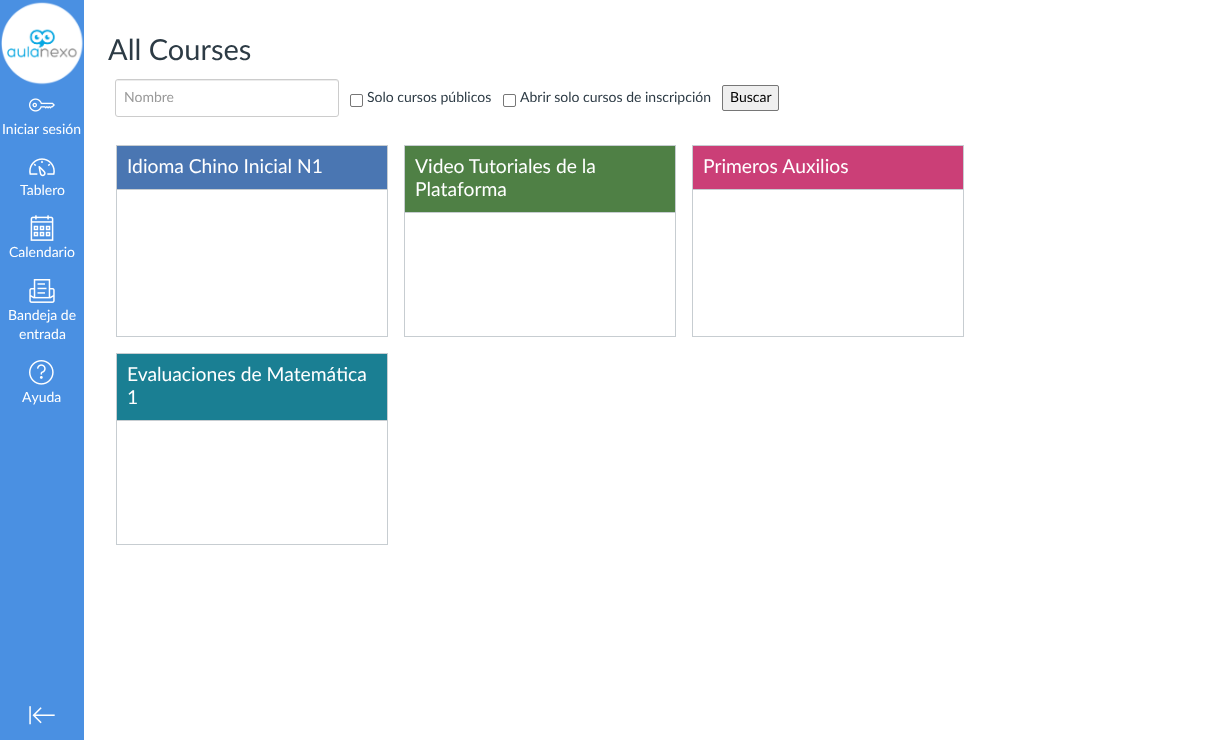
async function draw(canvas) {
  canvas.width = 1232
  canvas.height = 740
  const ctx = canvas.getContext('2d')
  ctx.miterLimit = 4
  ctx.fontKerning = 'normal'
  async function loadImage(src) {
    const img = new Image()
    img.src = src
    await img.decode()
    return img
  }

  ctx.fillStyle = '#fff'
  ctx.fillRect(0, 0, 1232, 740)
  ctx.fillStyle = '#4a90e2'
  ctx.fillRect(0, 0, 84, 740)
  ctx.drawImage(await loadImage('image0.png'), 1, 2, 83, 83)
  ctx.drawImage(await loadImage('image1.png'), 29, 98, 26, 14)
  ctx.font = '14px Lato'
  ctx.fillStyle = '#fff'
  ctx.fillText('Iniciar sesión', 2, 134)
  ctx.drawImage(await loadImage('image2.png'), 29, 158, 26, 19)
  ctx.fillText('Tablero', 20, 195)
  ctx.drawImage(await loadImage('image3.png'), 30, 215, 24, 26)
  ctx.fillText('Calendario', 9, 257)
  ctx.drawImage(await loadImage('image4.png'), 29, 279, 26, 24)
  ctx.fillText('Bandeja de', 8, 320)
  ctx.fillText('entrada', 19, 339)
  ctx.drawImage(await loadImage('image5.png'), 29, 360, 25, 25)
  ctx.fillText('Ayuda', 22, 402)
  ctx.drawImage(await loadImage('image6.png'), 29, 706, 26, 19)
  ctx.font = '29px Lato'
  ctx.fillStyle = '#2d3b45'
  ctx.fillText('All Courses', 108, 60)
  ctx.fillStyle = '#ececec'
  ctx.beginPath()
  ctx.moveTo(118, 81)
  ctx.lineTo(336, 81)
  ctx.bezierCurveTo(337, 81, 338, 82, 338, 83)
  ctx.bezierCurveTo(338, 82, 338, 80, 336, 80)
  ctx.lineTo(118, 80)
  ctx.lineTo(117, 81)
  ctx.lineTo(116, 83)
  ctx.bezierCurveTo(116, 82, 117, 81, 118, 81)
  ctx.closePath()
  ctx.fill()
  ctx.beginPath()
  ctx.roundRect(115.5, 79.5, 223, 37, 2.5)
  ctx.strokeStyle = '#ccc'
  ctx.stroke()
  ctx.font = '14px Lato'
  ctx.fillStyle = '#999'
  ctx.fillText('Nombre', 124, 102)
  ctx.beginPath()
  ctx.roundRect(350.5, 94.5, 12, 12, 1.5)
  ctx.strokeStyle = '#767676'
  ctx.stroke()
  ctx.fillStyle = '#2d3b45'
  ctx.fillText('Solo cursos públicos', 367, 102)
  ctx.beginPath()
  ctx.roundRect(503.5, 94.5, 12, 12, 1.5)
  ctx.stroke()
  ctx.fillText('Abrir solo cursos de inscripción', 520, 102)
  ctx.fillStyle = '#efefef'
  ctx.beginPath()
  ctx.roundRect(722.5, 85.5, 56, 25, 1.5)
  ctx.fill()
  ctx.stroke()
  ctx.fillStyle = '#000'
  ctx.fillText('Buscar', 730, 102)
  ctx.strokeStyle = '#c7cdd1'
  ctx.strokeRect(116.5, 145.5, 271, 191)
  ctx.fillStyle = '#4a76b2'
  ctx.fillRect(117, 146, 270, 43)
  ctx.fillStyle = '#c7cdd1'
  ctx.fillRect(117, 189, 270, 1)
  ctx.font = '19.25px Lato'
  ctx.fillStyle = '#fff'
  ctx.fillText('Idioma Chino Inicial N1', 127, 173)
  ctx.strokeRect(404.5, 145.5, 271, 191)
  ctx.fillStyle = '#4f8045'
  ctx.fillRect(405, 146, 270, 66)
  ctx.fillStyle = '#c7cdd1'
  ctx.fillRect(405, 212, 270, 1)
  ctx.fillStyle = '#fff'
  ctx.fillText('Video Tutoriales de la', 415, 173)
  ctx.fillText('Plataforma', 415, 196)
  ctx.strokeRect(692.5, 145.5, 271, 191)
  ctx.fillStyle = '#cb3f77'
  ctx.fillRect(693, 146, 270, 43)
  ctx.fillStyle = '#c7cdd1'
  ctx.fillRect(693, 189, 270, 1)
  ctx.fillStyle = '#fff'
  ctx.fillText('Primeros Auxilios', 703, 173)
  ctx.strokeRect(116.5, 353.5, 271, 191)
  ctx.fillStyle = '#1a7f93'
  ctx.fillRect(117, 354, 270, 66)
  ctx.fillStyle = '#c7cdd1'
  ctx.fillRect(117, 420, 270, 1)
  ctx.fillStyle = '#fff'
  ctx.fillText('Evaluaciones de Matemática', 127, 381)
  ctx.fillText('1', 127, 404)
}

draw(document.querySelector('canvas'))
